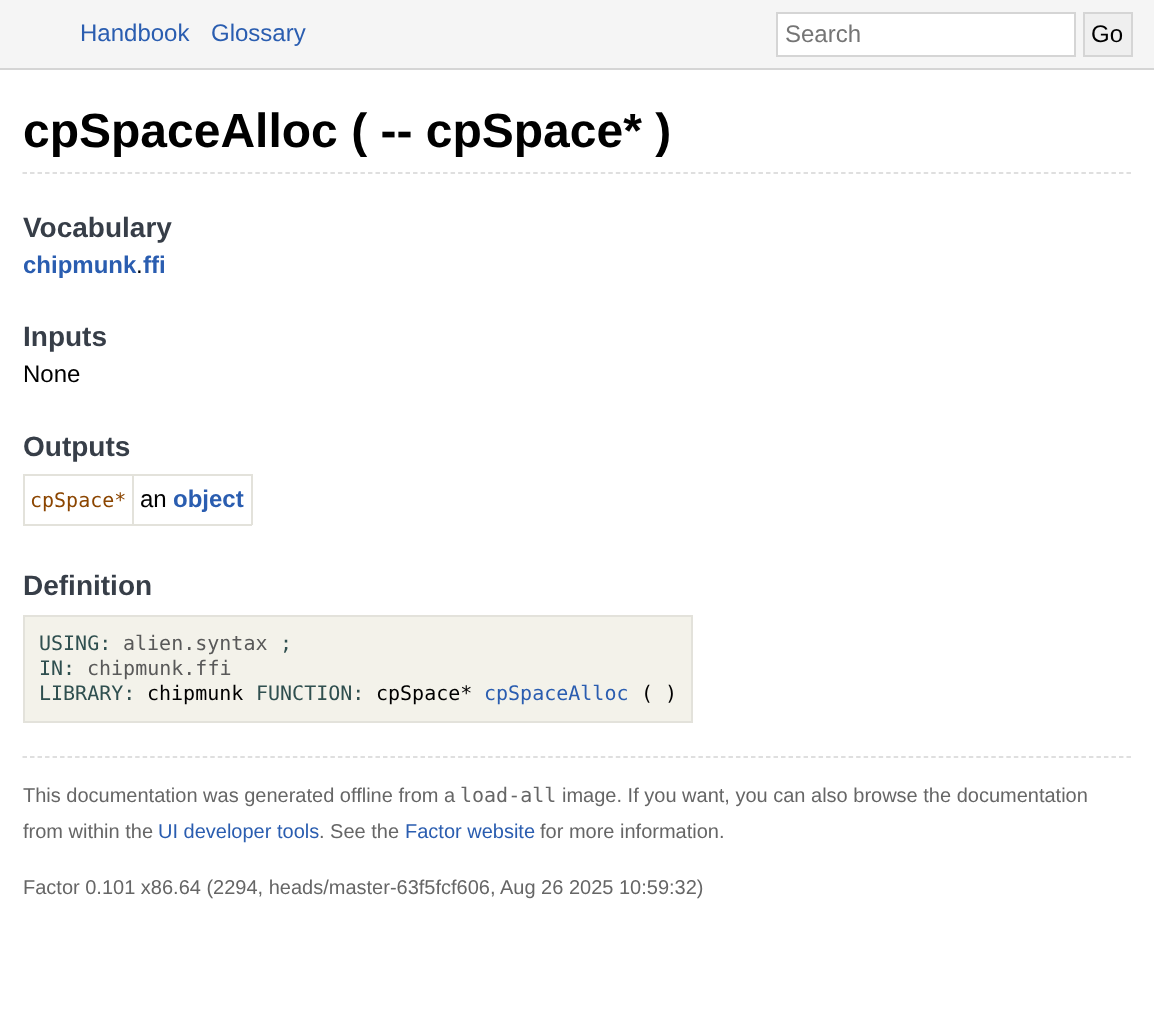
async function draw(canvas) {
  canvas.width = 1154
  canvas.height = 1023
  const ctx = canvas.getContext('2d')
  ctx.miterLimit = 4
  ctx.fontKerning = 'normal'

  ctx.fillStyle = '#fff'
  ctx.fillRect(0, 0, 1154, 1023)
  ctx.fillStyle = '#f5f5f5'
  ctx.fillRect(0, 0, 1154, 68)
  ctx.fillStyle = '#d5d5d5'
  ctx.fillRect(0, 68, 1154, 2)
  ctx.font = '24px Liberation Sans'
  ctx.fillStyle = '#2a5db0'
  ctx.fillText('Handbook', 80, 41)
  ctx.fillText('Glossary', 211, 41)
  ctx.fillStyle = '#fff'
  ctx.beginPath()
  ctx.rect(777, 13, 298, 43)
  ctx.fill()
  ctx.strokeStyle = '#d5d5d5'
  ctx.lineWidth = 2
  ctx.stroke()
  ctx.fillStyle = '#757575'
  ctx.fillText('Search', 785, 42)
  ctx.fillStyle = '#efefef'
  ctx.beginPath()
  ctx.rect(1084, 13, 48, 43)
  ctx.fill()
  ctx.stroke()
  ctx.fillStyle = '#000'
  ctx.fillText('Go', 1091, 42)
  ctx.beginPath()
  ctx.moveTo(22.5, 173)
  ctx.lineTo(1132.5, 173)
  ctx.lineWidth = 1.5
  ctx.setLineDash([4.5, 3.01])
  ctx.stroke()
  ctx.font = 'bold 48px Liberation Sans'
  ctx.fillText('cpSpaceAlloc ( -- cpSpace* )', 23, 147)
  ctx.font = 'bold 28px Liberation Sans'
  ctx.fillStyle = '#373e48'
  ctx.fillText('Vocabulary', 23, 237)
  ctx.font = 'bold 24px Liberation Sans'
  ctx.fillStyle = '#2a5db0'
  ctx.fillText('chipmunk ffi', 23, 273)
  ctx.font = '24px Liberation Sans'
  ctx.fillStyle = '#000'
  ctx.fillText('.', 136, 273)
  ctx.font = 'bold 28px Liberation Sans'
  ctx.fillStyle = '#373e48'
  ctx.fillText('Inputs', 23, 346)
  ctx.font = '24px Liberation Sans'
  ctx.fillStyle = '#000'
  ctx.fillText('None', 23, 382)
  ctx.font = 'bold 28px Liberation Sans'
  ctx.fillStyle = '#373e48'
  ctx.fillText('Outputs', 23, 456)
  ctx.fillStyle = '#e3e2db'
  ctx.fillRect(132, 474, 120, 2)
  ctx.fillRect(251, 474, 2, 51)
  ctx.fillRect(132, 524, 120, 2)
  ctx.fillRect(132, 474, 2, 51)
  ctx.fillRect(23, 474, 111, 2)
  ctx.fillRect(23, 524, 111, 2)
  ctx.fillRect(23, 474, 2, 51)
  ctx.font = '20px DejaVu Sans Mono'
  ctx.fillStyle = '#8b4500'
  ctx.fillText('cpSpace*', 30, 507)
  ctx.font = '24px Liberation Sans'
  ctx.fillStyle = '#000'
  ctx.fillText('an', 140, 507)
  ctx.font = 'bold 24px Liberation Sans'
  ctx.fillStyle = '#2a5db0'
  ctx.fillText('object', 173, 507)
  ctx.font = 'bold 28px Liberation Sans'
  ctx.fillStyle = '#373e48'
  ctx.fillText('Definition', 23, 595)
  ctx.fillStyle = '#f3f2ea'
  ctx.beginPath()
  ctx.rect(24, 616, 668, 106)
  ctx.fill()
  ctx.strokeStyle = '#e3e2db'
  ctx.lineWidth = 2
  ctx.setLineDash([])
  ctx.stroke()
  ctx.font = '20px DejaVu Sans Mono'
  ctx.fillStyle = '#2f4f4f'
  ctx.fillText('USING:', 39, 650)
  ctx.fillStyle = '#595959'
  ctx.fillText('alien.syntax', 123, 650)
  ctx.fillStyle = '#2f4f4f'
  ctx.fillText(';', 280, 650)
  ctx.fillText('IN:', 39, 675)
  ctx.fillStyle = '#595959'
  ctx.fillText('chipmunk.ffi', 87, 675)
  ctx.fillStyle = '#2f4f4f'
  ctx.fillText('LIBRARY:', 39, 700)
  ctx.fillStyle = '#000'
  ctx.fillText('chipmunk', 147, 700)
  ctx.fillStyle = '#2f4f4f'
  ctx.fillText('FUNCTION:', 256, 700)
  ctx.fillStyle = '#000'
  ctx.fillText('cpSpace*', 376, 700)
  ctx.fillStyle = '#2a5db0'
  ctx.fillText('cpSpaceAlloc', 484, 700)
  ctx.fillStyle = '#000'
  ctx.fillText('( )', 641, 700)
  ctx.beginPath()
  ctx.moveTo(22.5, 757)
  ctx.lineTo(1132.5, 757)
  ctx.strokeStyle = '#d5d5d5'
  ctx.lineWidth = 1.5
  ctx.setLineDash([4.5, 3.01])
  ctx.stroke()
  ctx.font = '20px Liberation Sans'
  ctx.fillStyle = '#666'
  ctx.fillText('This documentation was generated offline from a', 23, 802)
  ctx.font = '20px DejaVu Sans Mono'
  ctx.fillText('load-all', 460, 802)
  ctx.font = '20px Liberation Sans'
  ctx.fillText('image. If you want, you can also browse the documentation', 562, 802)
  ctx.fillText('from within the', 23, 838)
  ctx.fillStyle = '#2a5db0'
  ctx.fillText('UI developer tools', 158, 838)
  ctx.fillStyle = '#666'
  ctx.fillText('. See the', 319, 838)
  ctx.fillStyle = '#2a5db0'
  ctx.fillText('Factor website', 405, 838)
  ctx.fillStyle = '#666'
  ctx.fillText('for more information.', 540, 838)
  ctx.fillText('Factor 0.101 x86.64 (2294, heads/master-63f5fcf606, Aug 26 2025 10:59:32)', 23, 894)
}

draw(document.querySelector('canvas'))
